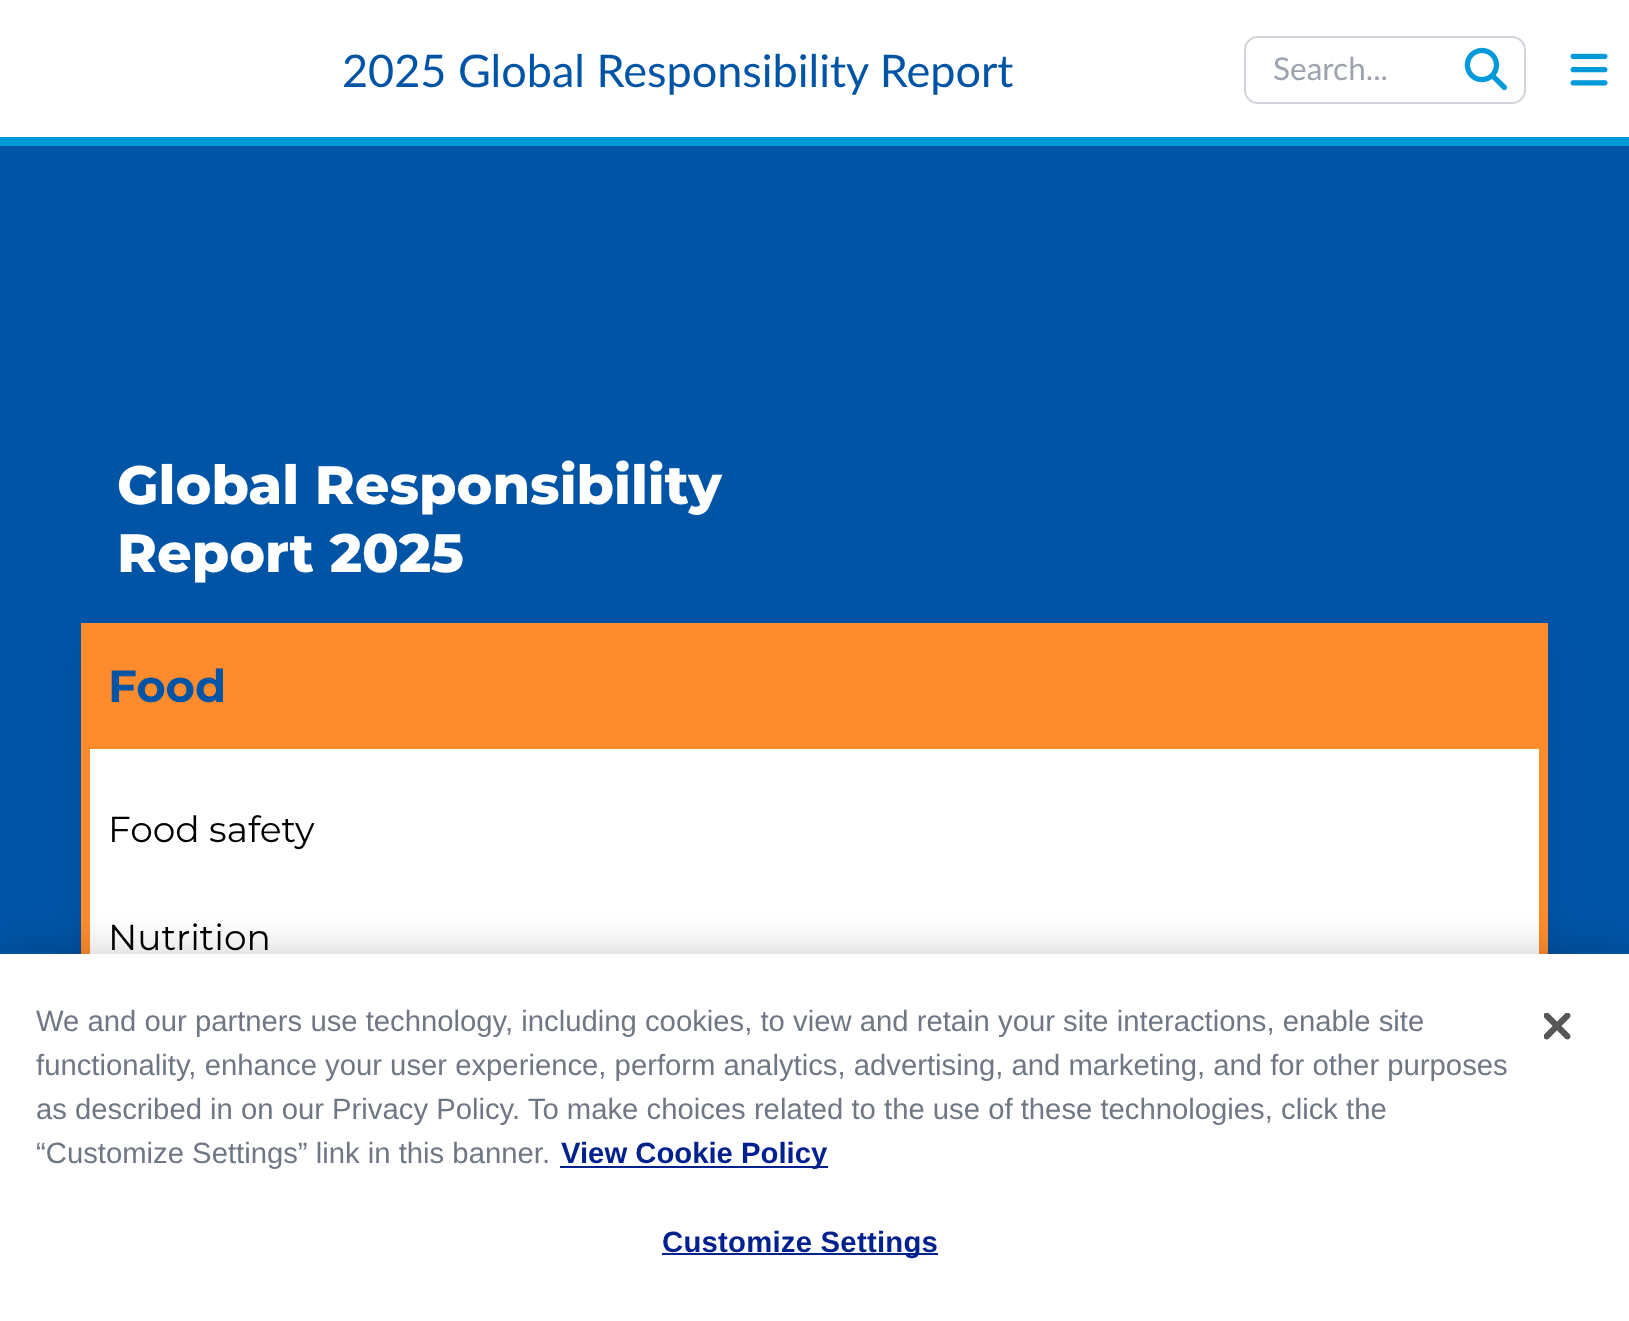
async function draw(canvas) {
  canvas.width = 1629
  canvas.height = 1321
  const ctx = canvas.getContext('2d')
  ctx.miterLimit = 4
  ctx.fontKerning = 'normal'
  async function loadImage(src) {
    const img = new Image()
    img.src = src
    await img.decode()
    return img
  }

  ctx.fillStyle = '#fff'
  ctx.fillRect(0, 0, 1629, 1321)
  ctx.fillStyle = '#0099d9'
  ctx.fillRect(0, 137, 1629, 9)
  ctx.font = '45px Lato'
  ctx.fillStyle = '#0054a6'
  ctx.fillText('2025 Global Responsibility Report', 342, 87)
  ctx.beginPath()
  ctx.roundRect(1245, 37, 280, 66, 13)
  ctx.strokeStyle = '#d1d5db'
  ctx.lineWidth = 2
  ctx.stroke()
  ctx.font = '31.5px Lato'
  ctx.fillStyle = '#9ca3af'
  ctx.fillText('Search...', 1273, 80)
  ctx.drawImage(await loadImage('image0.png'), 1464, 47, 43, 44)
  ctx.drawImage(await loadImage('image1.png'), 1570, 53, 38, 33)
  ctx.fillStyle = '#0054a6'
  ctx.fillRect(0, 146, 1629, 808)
  ctx.font = '800 54px Montserrat'
  ctx.fillStyle = '#fff'
  ctx.fillText('Global Responsibility', 117, 504)
  ctx.fillText('Report 2025', 117, 572)
  ctx.fillStyle = '#0000001a'
  ctx.filter = 'blur(17px)'
  ctx.beginPath()
  ctx.rect(88, 653, 1453, 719)
  ctx.fill()
  ctx.filter = 'none'
  ctx.fillStyle = '#fff'
  ctx.fillRect(90, 749, 1449, 205)
  ctx.fillStyle = '#ff8c2c'
  ctx.fillRect(81, 623, 1467, 126)
  ctx.font = 'bold 45px Montserrat'
  ctx.fillStyle = '#0054a6'
  ctx.fillText('Food', 108, 702)
  ctx.fillStyle = '#ff8c2c'
  ctx.fillRect(1539, 749, 9, 205)
  ctx.fillRect(81, 749, 9, 205)
  ctx.font = '36px Montserrat'
  ctx.fillStyle = '#000'
  ctx.fillText('Food safety', 108, 842)
  ctx.fillText('Nutrition', 108, 950)
  ctx.fillStyle = '#00000033'
  ctx.filter = 'blur(20px)'
  ctx.beginPath()
  ctx.rect(0, 954, 1629, 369)
  ctx.fill()
  ctx.filter = 'none'
  ctx.fillStyle = '#fff'
  ctx.fillRect(0, 954, 1629, 367)
  ctx.font = '29.27px Liberation Sans'
  ctx.fillStyle = '#6f7785'
  ctx.fillText('We and our partners use technology, including cookies, to view and retain your site interactions, enable site', 36, 1031)
  ctx.fillText('functionality, enhance your user experience, perform analytics, advertising, and marketing, and for other purposes', 36, 1075)
  ctx.fillText('as described in on our Privacy Policy. To make choices related to the use of these technologies, click the', 36, 1119)
  ctx.fillText('“Customize Settings” link in this banner.', 36, 1163)
  ctx.fillStyle = '#00218e'
  ctx.fillRect(560, 1166, 268, 2)
  ctx.font = 'bold 29.27px Liberation Sans'
  ctx.fillText('View Cookie Policy', 561, 1163)
  ctx.fillRect(662, 1253, 276, 2)
  ctx.letterSpacing = '0.25px'
  ctx.fillText('Customize Settings', 662, 1252)
  ctx.drawImage(await loadImage('image2.png'), 1544, 1013, 27, 27)
}

draw(document.querySelector('canvas'))
